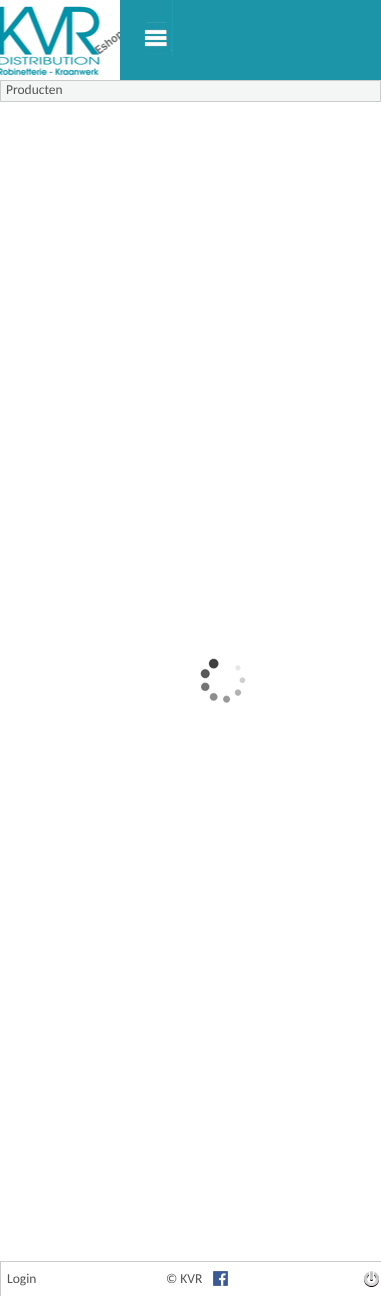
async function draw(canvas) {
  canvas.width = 381
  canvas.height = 1296
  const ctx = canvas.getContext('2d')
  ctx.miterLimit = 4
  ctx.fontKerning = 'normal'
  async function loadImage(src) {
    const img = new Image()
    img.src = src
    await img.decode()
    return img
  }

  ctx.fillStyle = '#fff'
  ctx.fillRect(0, 0, 381, 1296)
  ctx.drawImage(await loadImage('image0.png'), 0, 6, 120, 70)
  ctx.fillStyle = '#1c95a8'
  ctx.fillRect(120, 0, 261, 80)
  ctx.drawImage(await loadImage('image1.png'), 144, 0, 29, 56)
  ctx.fillStyle = '#f4f5f5'
  ctx.beginPath()
  ctx.rect(0.5, 80.5, 380, 21)
  ctx.fill()
  ctx.strokeStyle = '#cbcbcb'
  ctx.stroke()
  ctx.font = '13.5px Carlito'
  ctx.fillStyle = '#555'
  ctx.fillText('Producten', 6, 94)
  ctx.strokeRect(0.5, 1261.5, 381, 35)
  ctx.fillText('Login', 7, 1283)
  ctx.fillText('© KVR', 166, 1283)
  ctx.drawImage(await loadImage('image2.png'), 213, 1271, 15, 15)
  ctx.drawImage(await loadImage('image3.png'), 364, 1271, 15, 16)
  ctx.drawImage(await loadImage('image4.png'), 200, 658, 46, 45)
}

draw(document.querySelector('canvas'))
